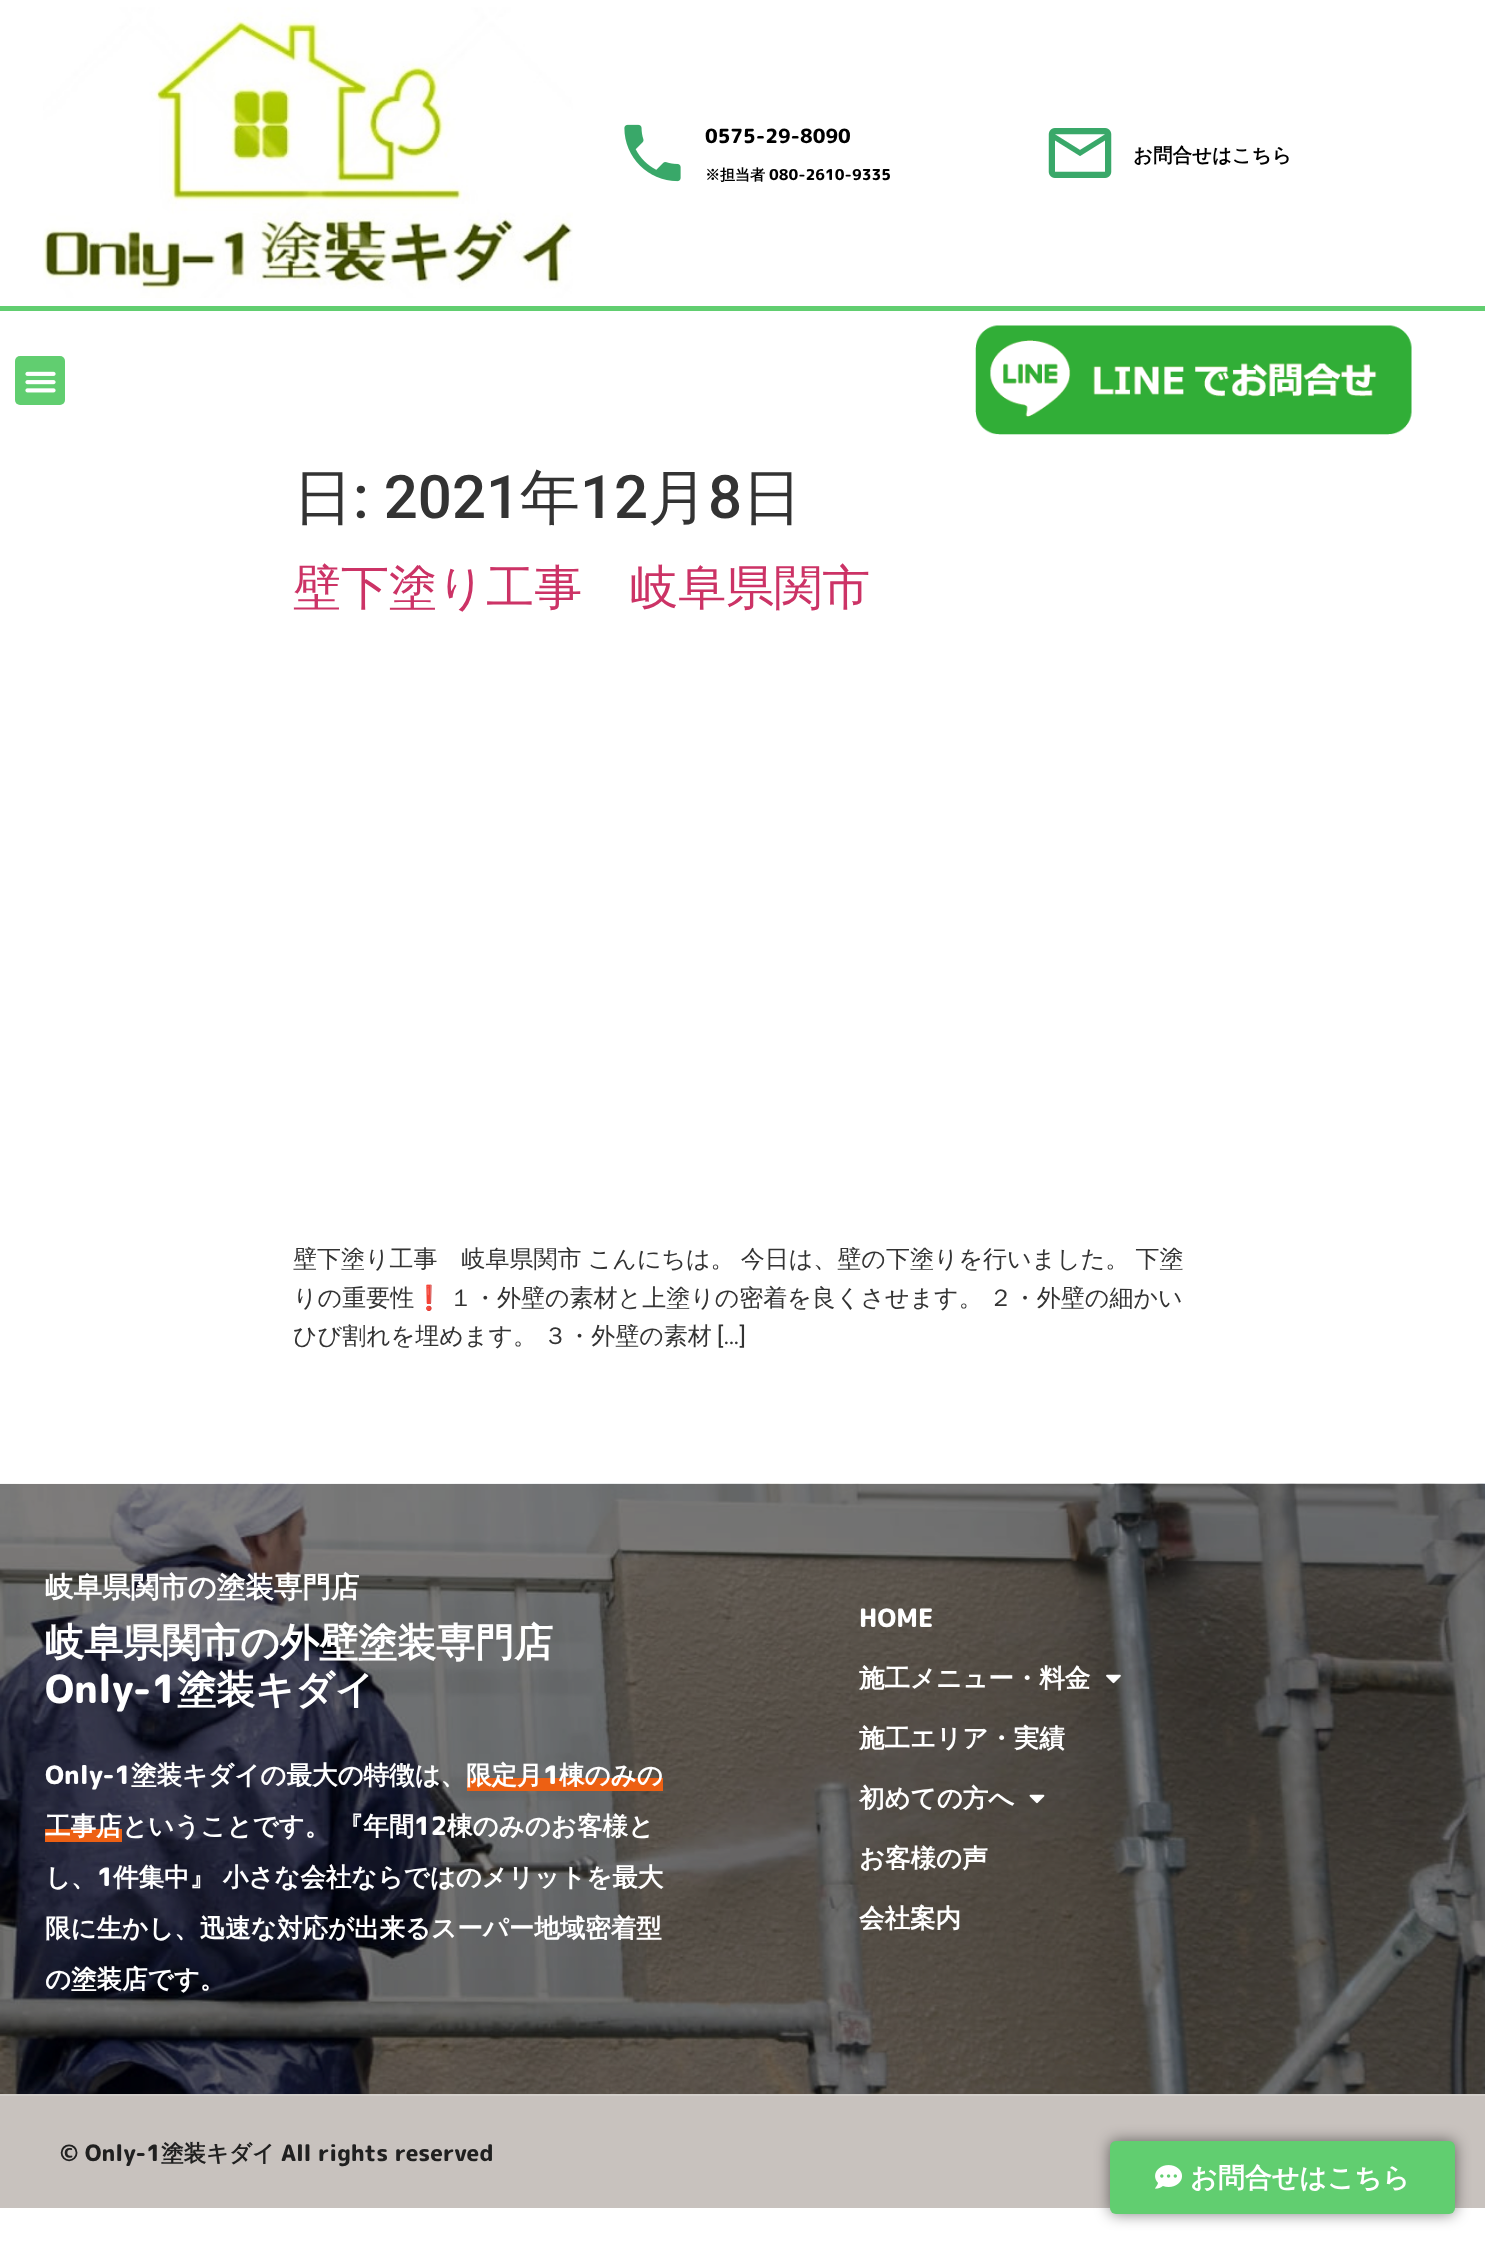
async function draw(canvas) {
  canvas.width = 1485
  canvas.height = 2244
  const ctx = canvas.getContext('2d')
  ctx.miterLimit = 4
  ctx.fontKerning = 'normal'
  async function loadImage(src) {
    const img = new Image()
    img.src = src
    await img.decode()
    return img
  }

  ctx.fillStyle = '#fff'
  ctx.fillRect(0, 0, 1485, 2244)
  ctx.drawImage(await loadImage('image0.png'), 43, 7, 530, 291)
  ctx.drawImage(await loadImage('image1.png'), 624, 124, 57, 58)
  ctx.font = '800 19.5px "Rounded Mplus 1c"'
  ctx.fillStyle = '#000'
  ctx.fillText('0575-29-8090', 705, 143)
  ctx.font = 'bold 15px WenQuanYi Zen Hei'
  ctx.fillText('※担当者', 705, 180)
  ctx.font = '800 15px "Rounded Mplus 1c"'
  ctx.fillText('080-2610-9335', 769, 180)
  ctx.drawImage(await loadImage('image2.png'), 1048, 128, 64, 50)
  ctx.font = 'bold 19.5px WenQuanYi Zen Hei'
  ctx.fillText('お問合せはこちら', 1133, 162)
  ctx.fillStyle = '#61ce70'
  ctx.fillRect(0, 306, 1485, 5)
  ctx.beginPath()
  ctx.roundRect(15, 356, 50, 49, 5)
  ctx.fill()
  ctx.drawImage(await loadImage('image3.png'), 25, 371, 31, 22)
  ctx.drawImage(await loadImage('image4.png'), 975, 325, 437, 110)
  ctx.font = '500 60px WenQuanYi Zen Hei'
  ctx.fillStyle = '#333'
  ctx.fillText('日', 293, 518)
  ctx.font = '500 60px Roboto'
  ctx.fillText(': 2021', 353, 518)
  ctx.font = '500 60px WenQuanYi Zen Hei'
  ctx.fillText('年', 520, 518)
  ctx.font = '500 60px Roboto'
  ctx.fillText('12', 580, 518)
  ctx.font = '500 60px WenQuanYi Zen Hei'
  ctx.fillText('月', 648, 518)
  ctx.font = '500 60px Roboto'
  ctx.fillText('8', 708, 518)
  ctx.font = '500 60px WenQuanYi Zen Hei'
  ctx.fillText('日', 742, 518)
  ctx.font = '500 48px WenQuanYi Zen Hei'
  ctx.fillStyle = '#c36'
  ctx.fillText('壁下塗り工事　岐阜県関市', 293, 604)
  ctx.wordSpacing = '-1px'
  ctx.font = '500 24px WenQuanYi Zen Hei'
  ctx.fillStyle = '#333'
  ctx.fillText('壁下塗り工事　岐阜県関市 こんにちは。 今日は、壁の下塗りを行いました。 下塗', 293, 1267)
  ctx.wordSpacing = '0px'
  ctx.fillText('りの重要性', 293, 1306)
  ctx.font = '24px Noto Color Emoji'
  ctx.fillText('❗️', 414, 1306)
  ctx.wordSpacing = '-1px'
  ctx.font = '500 24px WenQuanYi Zen Hei'
  ctx.fillText('１・外壁の素材と上塗りの密着を良くさせます。 ２・外壁の細かい', 449, 1306)
  ctx.fillText('ひび割れを埋めます。 ３・外壁の素材', 293, 1344)
  ctx.wordSpacing = '0px'
  ctx.font = '24px Roboto'
  ctx.fillText('[…]', 717, 1344)
  ctx.drawImage(await loadImage('image5.png'), 0, 1483, 1485, 611)
  ctx.font = 'bold 28.5px WenQuanYi Zen Hei'
  ctx.fillStyle = '#fff'
  ctx.fillText('岐阜県関市の塗装専門店', 45, 1597)
  ctx.font = 'bold 39px WenQuanYi Zen Hei'
  ctx.fillText('岐阜県関市の外壁塗装専門店', 45, 1656)
  ctx.font = '800 39px "Rounded Mplus 1c"'
  ctx.fillText('Only-1', 45, 1703)
  ctx.font = 'bold 39px WenQuanYi Zen Hei'
  ctx.fillText('塗装キダイ', 177, 1703)
  ctx.font = '800 25.5px "Rounded Mplus 1c"'
  ctx.fillText('Only-1', 45, 1784)
  ctx.font = 'bold 25.5px WenQuanYi Zen Hei'
  ctx.fillText('塗装キダイの最大の特徴は、', 131, 1784)
  ctx.fillStyle = '#ed6013'
  ctx.fillRect(467, 1778, 196, 13)
  ctx.fillStyle = '#fff'
  ctx.fillText('限定月', 466, 1784)
  ctx.font = '800 25.5px "Rounded Mplus 1c"'
  ctx.fillText('1', 543, 1784)
  ctx.font = 'bold 25.5px WenQuanYi Zen Hei'
  ctx.fillText('棟のみの', 559, 1784)
  ctx.fillStyle = '#ed6013'
  ctx.fillRect(45, 1829, 77, 13)
  ctx.fillStyle = '#fff'
  ctx.fillText('工事店', 45, 1835)
  ctx.fillText('ということです。 『年間', 122, 1835)
  ctx.font = '800 25.5px "Rounded Mplus 1c"'
  ctx.fillText('12', 414, 1835)
  ctx.font = 'bold 25.5px WenQuanYi Zen Hei'
  ctx.fillText('棟のみのお客様と', 447, 1835)
  ctx.fillText('し、', 45, 1886)
  ctx.font = '800 25.5px "Rounded Mplus 1c"'
  ctx.fillText('1', 97, 1886)
  ctx.font = 'bold 25.5px WenQuanYi Zen Hei'
  ctx.fillText('件集中』 小さな会社ならではのメリットを最大', 113, 1886)
  ctx.fillText('限に生かし、迅速な対応が出来るスーパー地域密着型', 45, 1937)
  ctx.fillText('の塗装店です。', 45, 1988)
  ctx.font = '800 25.5px "Rounded Mplus 1c"'
  ctx.fillText('HOME', 859, 1627)
  ctx.font = 'bold 25.5px WenQuanYi Zen Hei'
  ctx.fillText('施工メニュー・料金', 859, 1687)
  ctx.drawImage(await loadImage('image6.png'), 1106, 1674, 15, 10)
  ctx.fillText('施工エリア・実績', 859, 1747)
  ctx.fillText('初めての方へ', 859, 1807)
  ctx.drawImage(await loadImage('image7.png'), 1029, 1794, 16, 10)
  ctx.fillText('お客様の声', 859, 1867)
  ctx.fillText('会社案内', 859, 1927)
  ctx.fillStyle = '#c8c2be'
  ctx.fillRect(0, 2096, 1485, 112)
  ctx.fillStyle = '#d2ceca'
  ctx.fillRect(0, 2094, 1485, 2)
  ctx.font = '800 22.5px "Rounded Mplus 1c"'
  ctx.fillStyle = '#202020'
  ctx.fillText('© Only-1', 60, 2161)
  ctx.font = 'bold 22.5px WenQuanYi Zen Hei'
  ctx.fillText('塗装キダイ', 161, 2161)
  ctx.font = '800 22.5px "Rounded Mplus 1c"'
  ctx.fillText('All rights reserved', 281, 2161)
  ctx.fillStyle = '#00000080'
  ctx.filter = 'blur(7.5px)'
  ctx.beginPath()
  ctx.roundRect(1110, 2141, 345, 73, 6)
  ctx.fill()
  ctx.filter = 'none'
  ctx.fillStyle = '#61ce70'
  ctx.beginPath()
  ctx.roundRect(1110, 2141, 345, 73, 6)
  ctx.fill()
  ctx.drawImage(await loadImage('image8.png'), 1155, 2165, 27, 24)
  ctx.font = 'bold 27px WenQuanYi Zen Hei'
  ctx.fillStyle = '#fff'
  ctx.fillText('お問合せはこちら', 1190, 2187)
}

draw(document.querySelector('canvas'))
